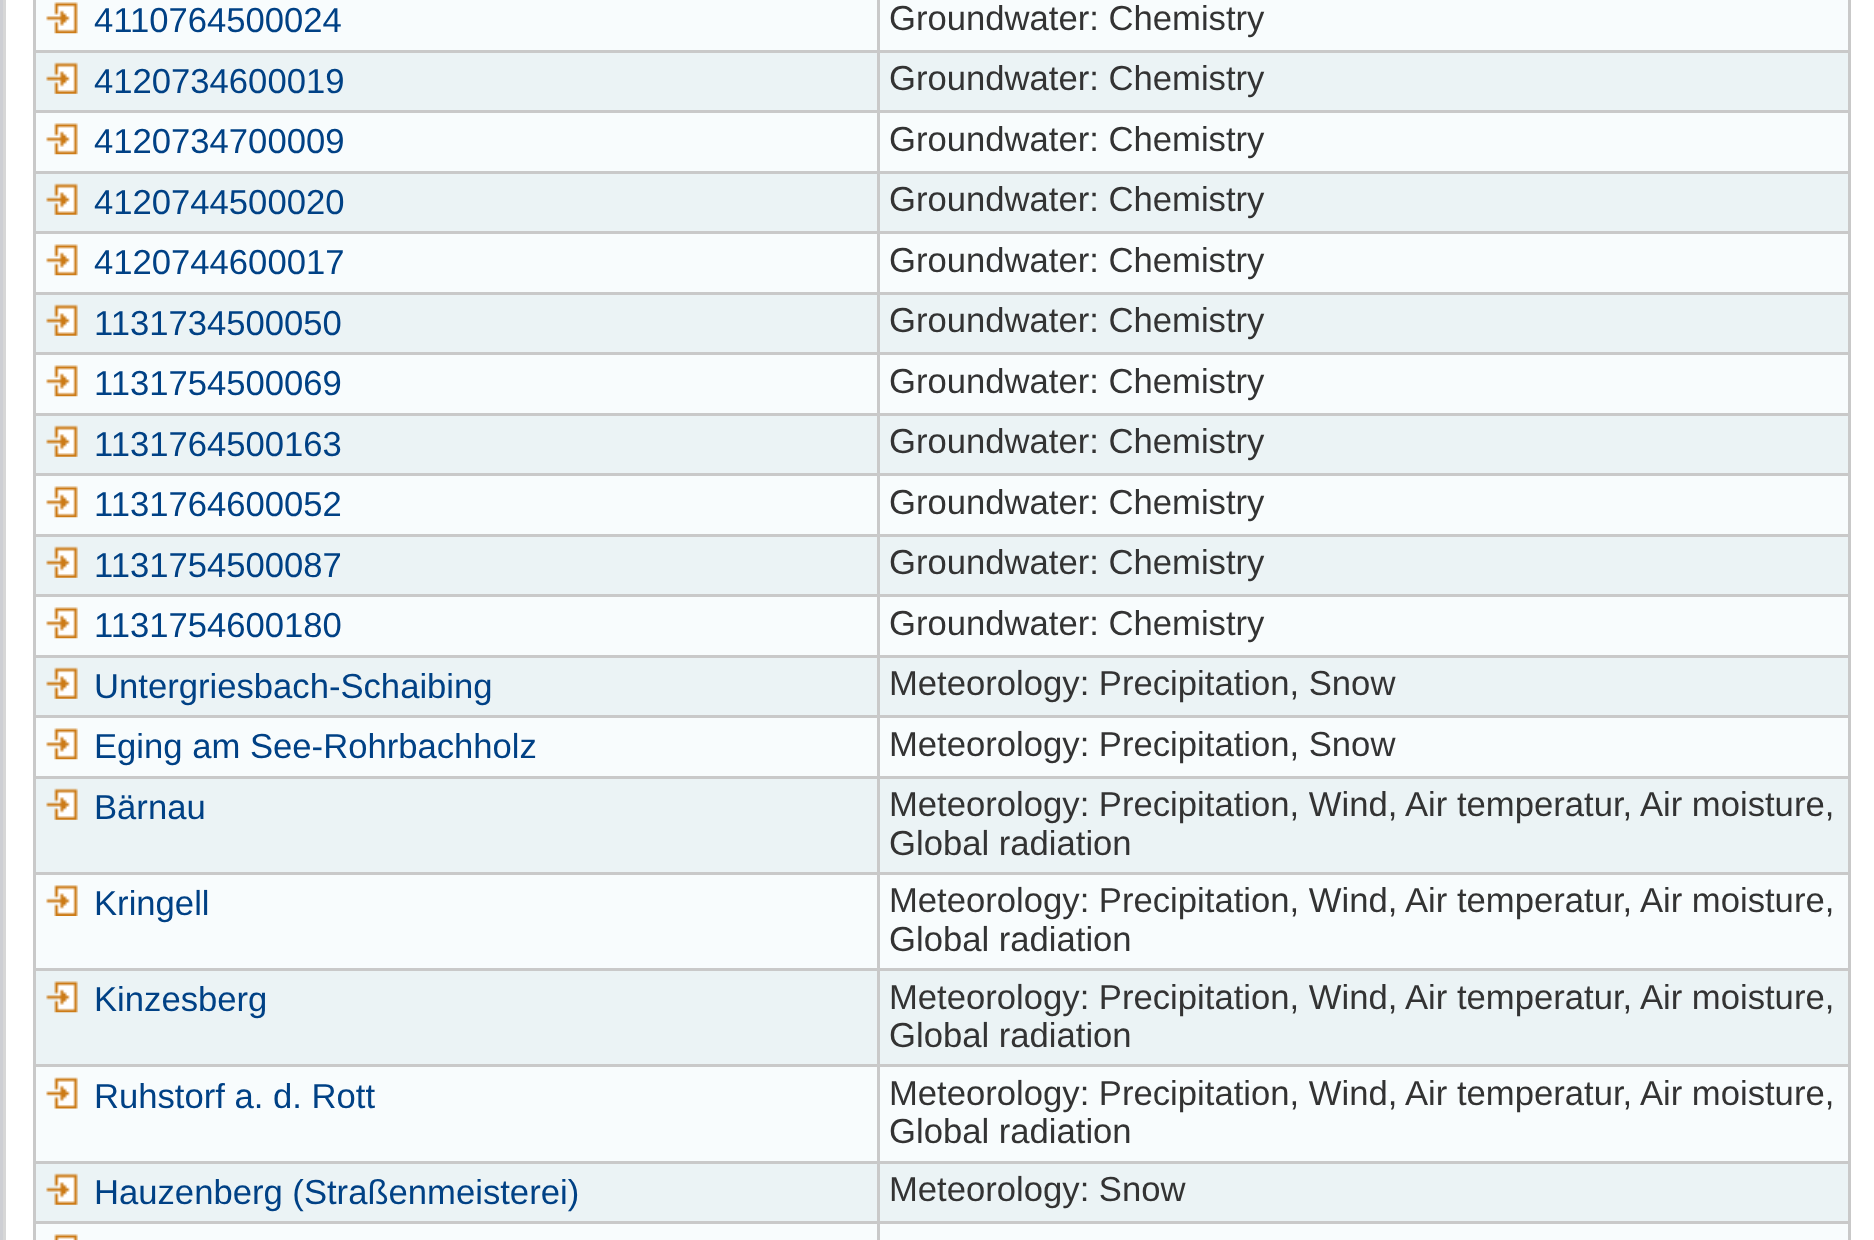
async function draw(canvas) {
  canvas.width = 1874
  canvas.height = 1240
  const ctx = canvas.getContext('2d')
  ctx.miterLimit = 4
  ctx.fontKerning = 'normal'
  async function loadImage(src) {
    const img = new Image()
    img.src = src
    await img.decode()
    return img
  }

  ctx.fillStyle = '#cecfd4'
  ctx.fillRect(0, 0, 1874, 1240)
  ctx.fillStyle = '#fff'
  ctx.fillRect(6, 0, 1868, 1240)
  ctx.fillStyle = '#d7d7d7'
  ctx.fillRect(3, 0, 3, 1240)
  ctx.fillStyle = '#f8fcfd'
  ctx.fillRect(36, 0, 1812, 50)
  ctx.drawImage(await loadImage('image0.png'), 46, 2, 32, 32)
  ctx.font = '34.65px Liberation Sans'
  ctx.fillStyle = '#004185'
  ctx.fillText('4110764500024', 94, 32)
  ctx.fillStyle = '#c9c9c9'
  ctx.fillRect(877, 50, 974, 3)
  ctx.fillStyle = '#ebf3f5'
  ctx.fillRect(36, 53, 1812, 57)
  ctx.fillStyle = '#c9c9c9'
  ctx.fillRect(877, 110, 974, 3)
  ctx.fillStyle = '#f8fcfd'
  ctx.fillRect(36, 113, 1812, 58)
  ctx.fillStyle = '#c9c9c9'
  ctx.fillRect(877, 171, 974, 3)
  ctx.fillStyle = '#ebf3f5'
  ctx.fillRect(36, 174, 1812, 57)
  ctx.fillStyle = '#c9c9c9'
  ctx.fillRect(877, 231, 974, 3)
  ctx.fillStyle = '#f8fcfd'
  ctx.fillRect(36, 234, 1812, 58)
  ctx.fillStyle = '#c9c9c9'
  ctx.fillRect(877, 292, 974, 3)
  ctx.fillStyle = '#ebf3f5'
  ctx.fillRect(36, 295, 1812, 57)
  ctx.fillStyle = '#c9c9c9'
  ctx.fillRect(877, 352, 974, 3)
  ctx.fillStyle = '#f8fcfd'
  ctx.fillRect(36, 355, 1812, 58)
  ctx.fillStyle = '#c9c9c9'
  ctx.fillRect(877, 413, 974, 3)
  ctx.fillStyle = '#ebf3f5'
  ctx.fillRect(36, 416, 1812, 57)
  ctx.fillStyle = '#c9c9c9'
  ctx.fillRect(877, 473, 974, 3)
  ctx.fillStyle = '#f8fcfd'
  ctx.fillRect(36, 476, 1812, 58)
  ctx.fillStyle = '#c9c9c9'
  ctx.fillRect(877, 534, 974, 3)
  ctx.fillStyle = '#ebf3f5'
  ctx.fillRect(36, 537, 1812, 57)
  ctx.fillStyle = '#c9c9c9'
  ctx.fillRect(877, 594, 974, 3)
  ctx.fillStyle = '#f8fcfd'
  ctx.fillRect(36, 597, 1812, 58)
  ctx.fillStyle = '#c9c9c9'
  ctx.fillRect(877, 655, 974, 3)
  ctx.fillStyle = '#ebf3f5'
  ctx.fillRect(36, 658, 1812, 57)
  ctx.fillStyle = '#c9c9c9'
  ctx.fillRect(877, 715, 974, 3)
  ctx.fillStyle = '#f8fcfd'
  ctx.fillRect(36, 718, 1812, 58)
  ctx.fillStyle = '#c9c9c9'
  ctx.fillRect(877, 776, 974, 3)
  ctx.fillStyle = '#ebf3f5'
  ctx.fillRect(36, 779, 1812, 93)
  ctx.fillStyle = '#c9c9c9'
  ctx.fillRect(877, 872, 974, 3)
  ctx.fillStyle = '#f8fcfd'
  ctx.fillRect(36, 875, 1812, 93)
  ctx.fillStyle = '#c9c9c9'
  ctx.fillRect(877, 968, 974, 3)
  ctx.fillStyle = '#ebf3f5'
  ctx.fillRect(36, 971, 1812, 93)
  ctx.fillStyle = '#c9c9c9'
  ctx.fillRect(877, 1064, 974, 3)
  ctx.fillStyle = '#f8fcfd'
  ctx.fillRect(36, 1067, 1812, 94)
  ctx.fillStyle = '#c9c9c9'
  ctx.fillRect(877, 1161, 974, 3)
  ctx.fillStyle = '#ebf3f5'
  ctx.fillRect(36, 1164, 1812, 57)
  ctx.fillStyle = '#c9c9c9'
  ctx.fillRect(877, 1221, 974, 3)
  ctx.fillStyle = '#f8fcfd'
  ctx.fillRect(36, 1224, 1812, 16)
  ctx.fillStyle = '#c9c9c9'
  ctx.fillRect(877, 1221, 3, 19)
  ctx.fillRect(33, 1221, 847, 3)
  ctx.fillRect(877, 1161, 3, 63)
  ctx.fillRect(33, 1161, 847, 3)
  ctx.fillRect(877, 1064, 3, 99)
  ctx.fillRect(33, 1064, 847, 3)
  ctx.fillRect(877, 968, 3, 99)
  ctx.fillRect(33, 968, 847, 3)
  ctx.fillRect(877, 872, 3, 99)
  ctx.fillRect(33, 872, 847, 3)
  ctx.fillRect(877, 776, 3, 99)
  ctx.fillRect(33, 776, 847, 3)
  ctx.fillRect(877, 715, 3, 63)
  ctx.fillRect(33, 715, 847, 3)
  ctx.fillRect(877, 655, 3, 63)
  ctx.fillRect(33, 655, 847, 3)
  ctx.fillRect(877, 594, 3, 63)
  ctx.fillRect(33, 594, 847, 3)
  ctx.fillRect(877, 534, 3, 63)
  ctx.fillRect(33, 534, 847, 3)
  ctx.fillRect(877, 473, 3, 63)
  ctx.fillRect(33, 473, 847, 3)
  ctx.fillRect(877, 413, 3, 63)
  ctx.fillRect(33, 413, 847, 3)
  ctx.fillRect(877, 352, 3, 63)
  ctx.fillRect(33, 352, 847, 3)
  ctx.fillRect(877, 292, 3, 63)
  ctx.fillRect(33, 292, 847, 3)
  ctx.fillRect(877, 231, 3, 63)
  ctx.fillRect(33, 231, 847, 3)
  ctx.fillRect(877, 171, 3, 63)
  ctx.fillRect(33, 171, 847, 3)
  ctx.fillRect(877, 110, 3, 63)
  ctx.fillRect(33, 110, 847, 3)
  ctx.fillRect(877, 50, 3, 63)
  ctx.fillRect(33, 50, 847, 3)
  ctx.fillRect(877, 0, 3, 52)
  ctx.fillStyle = '#333'
  ctx.fillText('Groundwater: Chemistry', 889, 30)
  ctx.fillStyle = '#c9c9c9'
  ctx.fillRect(33, 1221, 3, 19)
  ctx.fillRect(33, 1161, 3, 63)
  ctx.fillRect(33, 1064, 3, 99)
  ctx.fillRect(33, 968, 3, 99)
  ctx.fillRect(33, 872, 3, 99)
  ctx.fillRect(33, 776, 3, 99)
  ctx.fillRect(33, 715, 3, 63)
  ctx.fillRect(33, 655, 3, 63)
  ctx.fillRect(33, 594, 3, 63)
  ctx.fillRect(33, 534, 3, 63)
  ctx.fillRect(33, 473, 3, 63)
  ctx.fillRect(33, 413, 3, 63)
  ctx.fillRect(33, 352, 3, 63)
  ctx.fillRect(33, 292, 3, 63)
  ctx.fillRect(33, 231, 3, 63)
  ctx.fillRect(33, 171, 3, 63)
  ctx.fillRect(33, 110, 3, 63)
  ctx.fillRect(33, 0, 3, 113)
  ctx.drawImage(await loadImage('image1.png'), 46, 62, 32, 32)
  ctx.fillStyle = '#004185'
  ctx.fillText('4120734600019', 94, 93)
  ctx.fillStyle = '#c9c9c9'
  ctx.fillRect(1848, 1221, 3, 19)
  ctx.fillRect(1848, 1161, 3, 63)
  ctx.fillRect(1848, 1064, 3, 99)
  ctx.fillRect(1848, 968, 3, 99)
  ctx.fillRect(1848, 872, 3, 99)
  ctx.fillRect(1848, 776, 3, 99)
  ctx.fillRect(1848, 715, 3, 63)
  ctx.fillRect(1848, 655, 3, 63)
  ctx.fillRect(1848, 594, 3, 63)
  ctx.fillRect(1848, 534, 3, 63)
  ctx.fillRect(1848, 473, 3, 63)
  ctx.fillRect(1848, 413, 3, 63)
  ctx.fillRect(1848, 352, 3, 63)
  ctx.fillRect(1848, 292, 3, 63)
  ctx.fillRect(1848, 231, 3, 63)
  ctx.fillRect(1848, 171, 3, 63)
  ctx.fillRect(1848, 110, 3, 63)
  ctx.fillRect(1848, 0, 3, 113)
  ctx.fillStyle = '#333'
  ctx.fillText('Groundwater: Chemistry', 889, 90)
  ctx.drawImage(await loadImage('image0.png'), 46, 123, 32, 32)
  ctx.fillStyle = '#004185'
  ctx.fillText('4120734700009', 94, 153)
  ctx.fillStyle = '#333'
  ctx.fillText('Groundwater: Chemistry', 889, 151)
  ctx.drawImage(await loadImage('image1.png'), 46, 183, 32, 32)
  ctx.fillStyle = '#004185'
  ctx.fillText('4120744500020', 94, 214)
  ctx.fillStyle = '#333'
  ctx.fillText('Groundwater: Chemistry', 889, 211)
  ctx.drawImage(await loadImage('image0.png'), 46, 244, 32, 32)
  ctx.fillStyle = '#004185'
  ctx.fillText('4120744600017', 94, 274)
  ctx.fillStyle = '#333'
  ctx.fillText('Groundwater: Chemistry', 889, 272)
  ctx.drawImage(await loadImage('image1.png'), 46, 304, 32, 32)
  ctx.fillStyle = '#004185'
  ctx.fillText('1131734500050', 94, 335)
  ctx.fillStyle = '#333'
  ctx.fillText('Groundwater: Chemistry', 889, 332)
  ctx.drawImage(await loadImage('image0.png'), 46, 365, 32, 32)
  ctx.fillStyle = '#004185'
  ctx.fillText('1131754500069', 94, 395)
  ctx.fillStyle = '#333'
  ctx.fillText('Groundwater: Chemistry', 889, 393)
  ctx.drawImage(await loadImage('image1.png'), 46, 425, 32, 32)
  ctx.fillStyle = '#004185'
  ctx.fillText('1131764500163', 94, 456)
  ctx.fillStyle = '#333'
  ctx.fillText('Groundwater: Chemistry', 889, 453)
  ctx.drawImage(await loadImage('image0.png'), 46, 486, 32, 32)
  ctx.fillStyle = '#004185'
  ctx.fillText('1131764600052', 94, 516)
  ctx.fillStyle = '#333'
  ctx.fillText('Groundwater: Chemistry', 889, 514)
  ctx.drawImage(await loadImage('image1.png'), 46, 546, 32, 32)
  ctx.fillStyle = '#004185'
  ctx.fillText('1131754500087', 94, 577)
  ctx.fillStyle = '#333'
  ctx.fillText('Groundwater: Chemistry', 889, 574)
  ctx.drawImage(await loadImage('image0.png'), 46, 607, 32, 32)
  ctx.fillStyle = '#004185'
  ctx.fillText('1131754600180', 94, 637)
  ctx.fillStyle = '#333'
  ctx.fillText('Groundwater: Chemistry', 889, 635)
  ctx.drawImage(await loadImage('image1.png'), 46, 667, 32, 32)
  ctx.fillStyle = '#004185'
  ctx.fillText('Untergriesbach-Schaibing', 94, 698)
  ctx.fillStyle = '#333'
  ctx.fillText('Meteorology: Precipitation, Snow', 889, 695)
  ctx.drawImage(await loadImage('image0.png'), 46, 728, 32, 32)
  ctx.fillStyle = '#004185'
  ctx.fillText('Eging am See-Rohrbachholz', 94, 758)
  ctx.fillStyle = '#333'
  ctx.fillText('Meteorology: Precipitation, Snow', 889, 756)
  ctx.drawImage(await loadImage('image1.png'), 46, 788, 32, 32)
  ctx.fillStyle = '#004185'
  ctx.fillText('Bärnau', 94, 819)
  ctx.fillStyle = '#333'
  ctx.fillText('Meteorology: Precipitation, Wind, Air temperatur, Air moisture,', 889, 816)
  ctx.fillText('Global radiation', 889, 855)
  ctx.drawImage(await loadImage('image2.png'), 46, 885, 32, 31)
  ctx.fillStyle = '#004185'
  ctx.fillText('Kringell', 94, 915)
  ctx.fillStyle = '#333'
  ctx.fillText('Meteorology: Precipitation, Wind, Air temperatur, Air moisture,', 889, 912)
  ctx.fillText('Global radiation', 889, 951)
  ctx.drawImage(await loadImage('image3.png'), 46, 981, 32, 32)
  ctx.fillStyle = '#004185'
  ctx.fillText('Kinzesberg', 94, 1011)
  ctx.fillStyle = '#333'
  ctx.fillText('Meteorology: Precipitation, Wind, Air temperatur, Air moisture,', 889, 1009)
  ctx.fillText('Global radiation', 889, 1047)
  ctx.drawImage(await loadImage('image4.png'), 46, 1077, 32, 32)
  ctx.fillStyle = '#004185'
  ctx.fillText('Ruhstorf a. d. Rott', 94, 1108)
  ctx.fillStyle = '#333'
  ctx.fillText('Meteorology: Precipitation, Wind, Air temperatur, Air moisture,', 889, 1105)
  ctx.fillText('Global radiation', 889, 1143)
  ctx.drawImage(await loadImage('image1.png'), 46, 1173, 32, 32)
  ctx.fillStyle = '#004185'
  ctx.fillText('Hauzenberg (Straßenmeisterei)', 94, 1204)
  ctx.fillStyle = '#333'
  ctx.fillText('Meteorology: Snow', 889, 1201)
  ctx.drawImage(await loadImage('image5.png'), 54, 1234, 24, 6)
}

draw(document.querySelector('canvas'))
